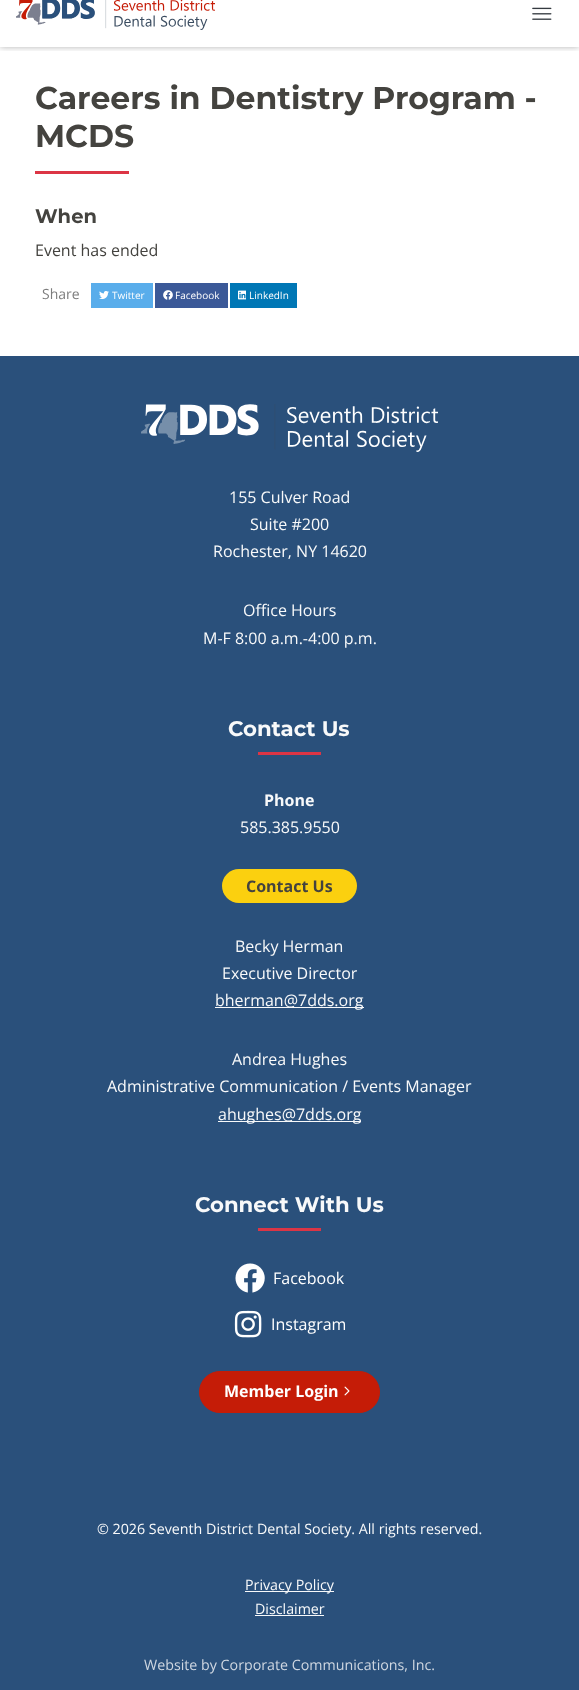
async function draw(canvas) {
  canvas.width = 579
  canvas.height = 1690
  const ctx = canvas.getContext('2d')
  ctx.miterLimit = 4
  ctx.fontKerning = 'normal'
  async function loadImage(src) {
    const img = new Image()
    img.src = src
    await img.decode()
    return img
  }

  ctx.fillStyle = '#fff'
  ctx.fillRect(0, 0, 579, 1690)
  ctx.save()
  ctx.beginPath()
  ctx.rect(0, 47, 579, 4)
  ctx.clip()
  ctx.fillStyle = '#0000004d'
  ctx.filter = 'blur(3px)'
  ctx.beginPath()
  ctx.rect(0, -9, 579, 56)
  ctx.fill()
  ctx.filter = 'none'
  ctx.restore()
  ctx.drawImage(await loadImage('image0.png'), 16, 0, 199, 30)
  ctx.drawImage(await loadImage('image1.png'), 532, 7, 20, 13)
  ctx.font = 'bold 31.5px Montserrat'
  ctx.fillStyle = '#44433f'
  ctx.fillText('Careers in Dentistry Program -', 35, 109)
  ctx.fillText('MCDS', 35, 147)
  ctx.fillStyle = '#dc3545'
  ctx.fillRect(35, 171, 94, 3)
  ctx.font = 'bold 19.5px Montserrat'
  ctx.fillStyle = '#44433f'
  ctx.fillText('When', 35, 223)
  ctx.font = '16px Open Sans'
  ctx.fillText('Event has ended', 35, 256)
  ctx.font = '14px Open Sans'
  ctx.fillStyle = '#7d7d7d'
  ctx.fillText('Share', 42, 299)
  ctx.fillStyle = '#59adeb'
  ctx.fillRect(91, 283, 62, 25)
  ctx.drawImage(await loadImage('image2.png'), 99, 291, 10, 9)
  ctx.font = '10px Open Sans'
  ctx.fillStyle = '#fff'
  ctx.fillText('Twitter', 112, 299)
  ctx.fillStyle = '#3b5998'
  ctx.fillRect(155, 283, 73, 25)
  ctx.drawImage(await loadImage('image3.png'), 163, 290, 10, 10)
  ctx.fillStyle = '#fff'
  ctx.fillText('Facebook', 175, 299)
  ctx.fillStyle = '#0077b5'
  ctx.fillRect(230, 283, 67, 25)
  ctx.drawImage(await loadImage('image4.png'), 238, 290, 8, 10)
  ctx.fillStyle = '#fff'
  ctx.fillText('LinkedIn', 249, 299)
  ctx.fillStyle = '#2a507b'
  ctx.fillRect(0, 356, 579, 1334)
  ctx.drawImage(await loadImage('image5.png'), 141, 404, 297, 48)
  ctx.font = '16px Open Sans'
  ctx.fillStyle = '#f8f9fa'
  ctx.fillText('155 Culver Road', 229, 503)
  ctx.fillText('Suite #200', 250, 530)
  ctx.fillText('Rochester, NY 14620', 213, 557)
  ctx.fillText('Office Hours', 243, 616)
  ctx.fillText('M-F 8:00 a.m.-4:00 p.m.', 203, 644)
  ctx.font = 'bold 21.25px Montserrat'
  ctx.fillText('Contact Us', 228, 736)
  ctx.fillStyle = '#dc3545'
  ctx.fillRect(258, 752, 63, 3)
  ctx.font = 'bold 16px Open Sans'
  ctx.fillStyle = '#f8f9fa'
  ctx.fillText('Phone', 264, 806)
  ctx.font = '16px Open Sans'
  ctx.fillText('585.385.9550', 240, 833)
  ctx.fillStyle = '#fbd00f'
  ctx.beginPath()
  ctx.roundRect(222, 869, 135, 34, 17)
  ctx.fill()
  ctx.font = 'bold 16px Open Sans'
  ctx.fillStyle = '#44433f'
  ctx.fillText('Contact Us', 246, 892)
  ctx.font = '16px Open Sans'
  ctx.fillStyle = '#f8f9fa'
  ctx.fillText('Becky Herman', 235, 952)
  ctx.fillText('Executive Director', 222, 979)
  ctx.fillRect(215, 1007, 149, 1)
  ctx.fillText('bherman@7dds.org', 215, 1006)
  ctx.fillText('Andrea Hughes', 232, 1065)
  ctx.fillText('Administrative Communication / Events Manager', 107, 1092)
  ctx.fillRect(218, 1121, 143, 1)
  ctx.fillText('ahughes@7dds.org', 218, 1120)
  ctx.font = 'bold 21.25px Montserrat'
  ctx.fillText('Connect With Us', 195, 1212)
  ctx.fillStyle = '#dc3545'
  ctx.fillRect(258, 1228, 63, 3)
  ctx.drawImage(await loadImage('image6.png'), 235, 1263, 30, 30)
  ctx.font = '16px Open Sans'
  ctx.fillStyle = '#fff'
  ctx.fillText('Facebook', 273, 1284)
  ctx.drawImage(await loadImage('image7.png'), 234, 1310, 28, 28)
  ctx.fillText('Instagram', 271, 1330)
  ctx.fillStyle = '#c51c07'
  ctx.beginPath()
  ctx.roundRect(199.5, 1371.5, 180, 41, 20.5)
  ctx.fill()
  ctx.strokeStyle = '#c51c07'
  ctx.stroke()
  ctx.font = 'bold 16px Open Sans'
  ctx.fillStyle = '#fff'
  ctx.fillText('Member Login', 224, 1397)
  ctx.drawImage(await loadImage('image8.png'), 344, 1386, 6, 10)
  ctx.font = '14.25px Open Sans'
  ctx.fillStyle = '#f8f9fa'
  ctx.fillText('© 2026 Seventh District Dental Society. All rights reserved.', 97, 1534)
  ctx.fillRect(245, 1591, 89, 1)
  ctx.fillText('Privacy Policy', 245, 1590)
  ctx.fillText('Disclaimer', 255, 1614)
  ctx.fillRect(255, 1615, 69, 1)
  ctx.fillStyle = '#cfd7e1'
  ctx.fillText('Website by Corporate Communications, Inc.', 144, 1670)
}

draw(document.querySelector('canvas'))
